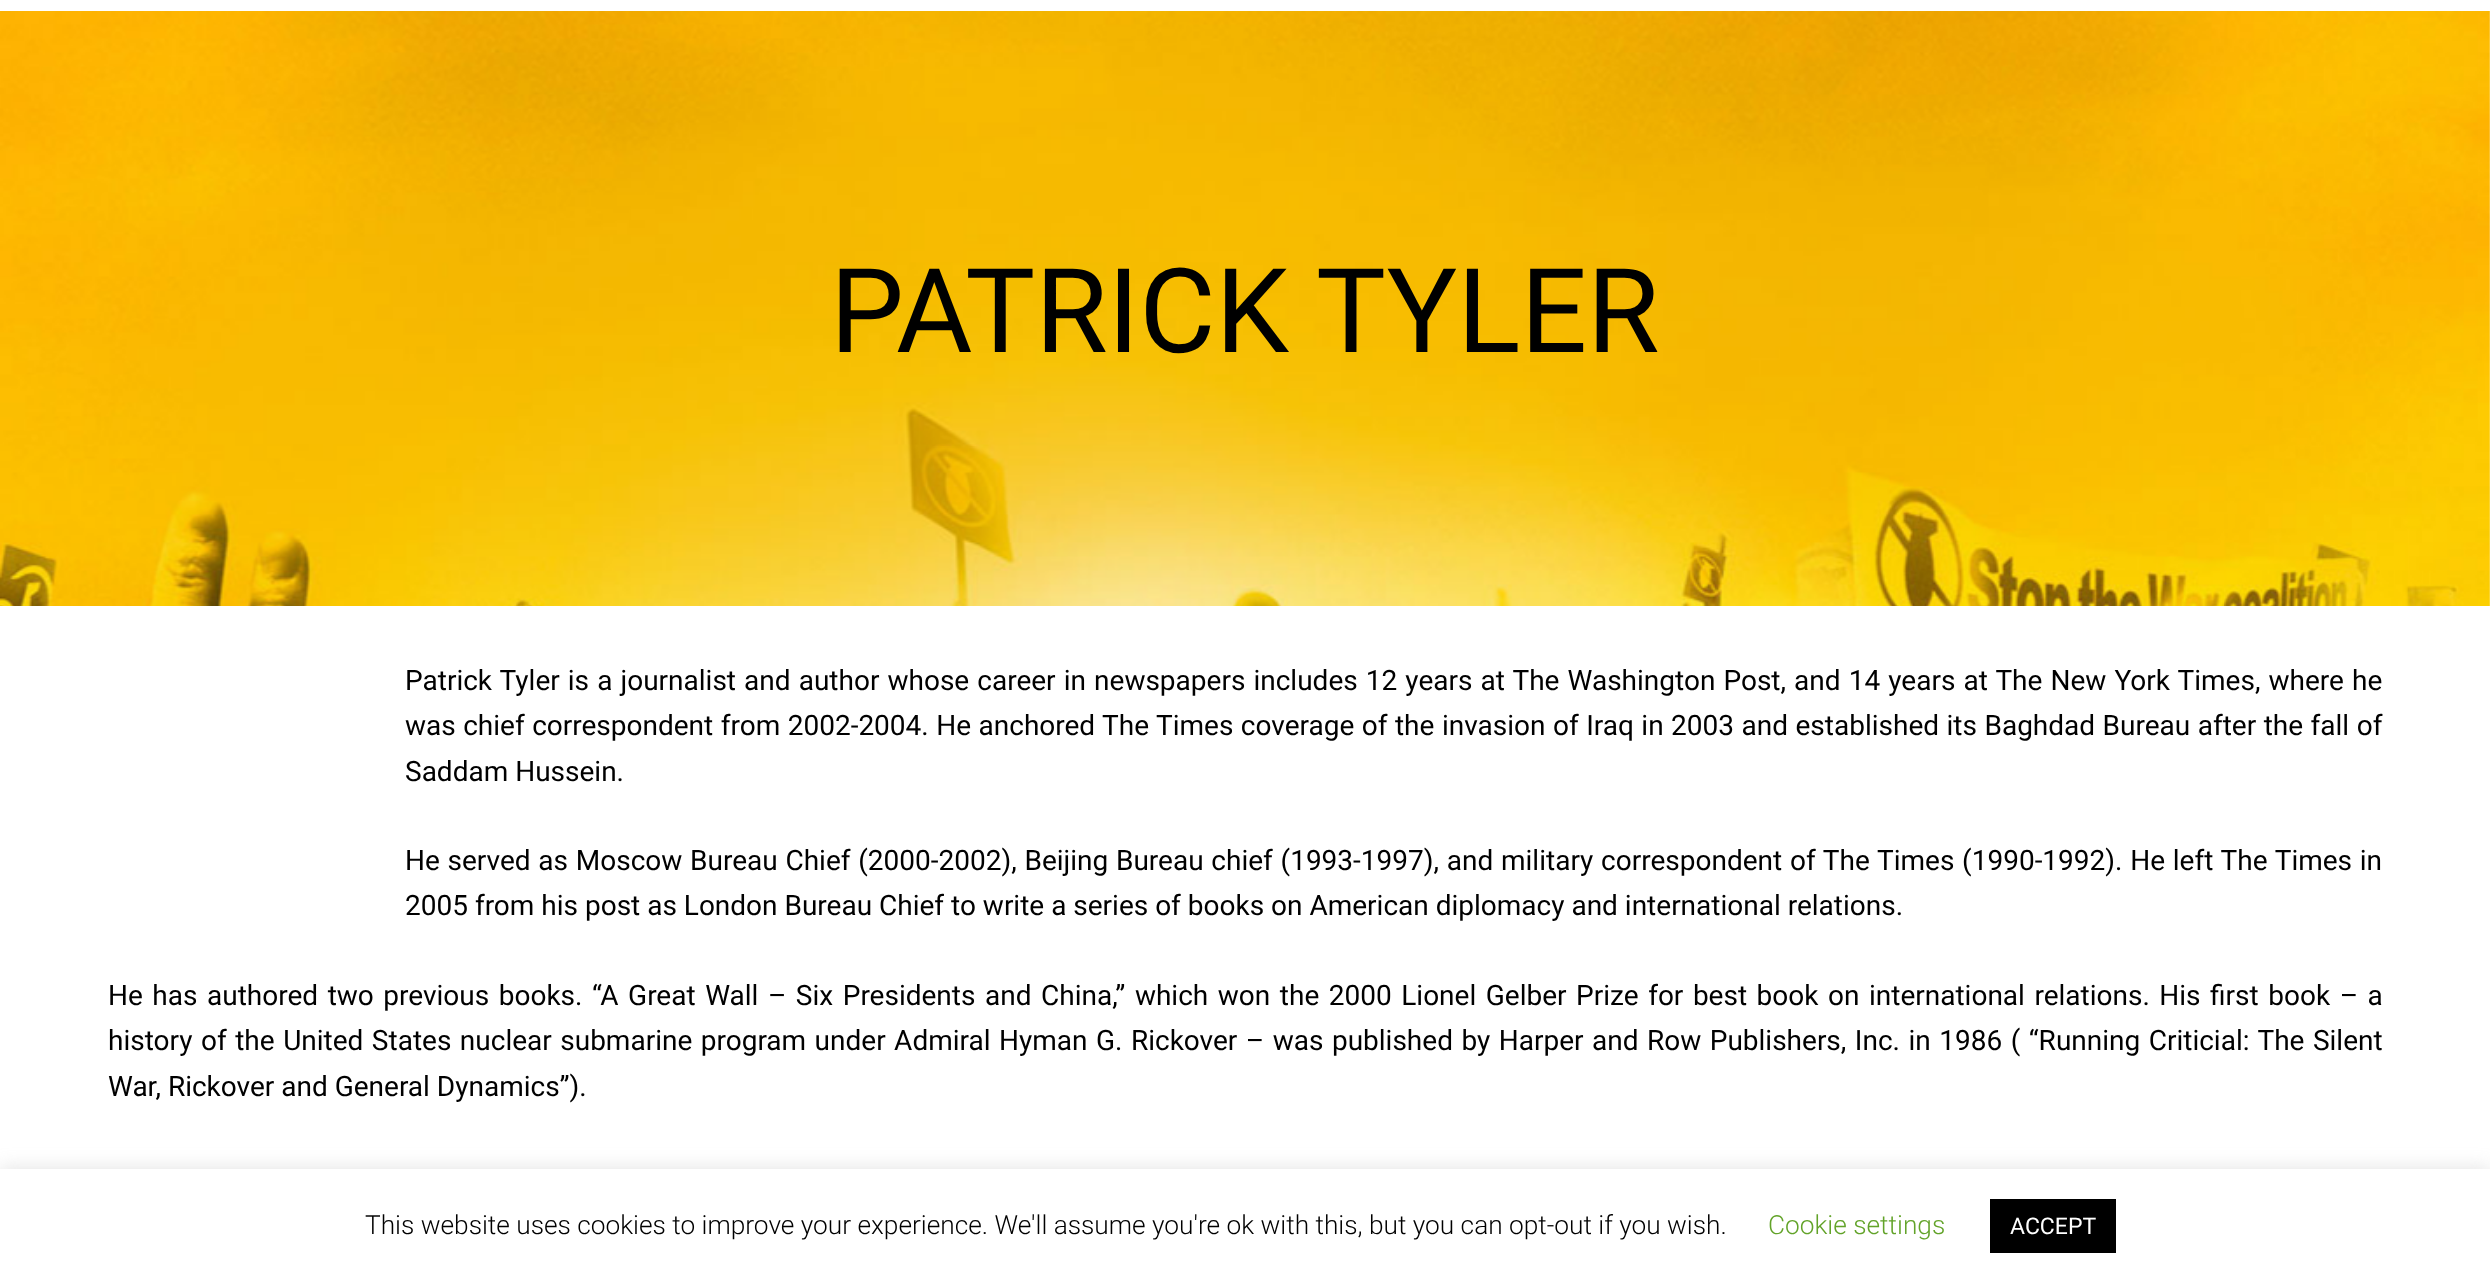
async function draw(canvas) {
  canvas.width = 2490
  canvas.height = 1282
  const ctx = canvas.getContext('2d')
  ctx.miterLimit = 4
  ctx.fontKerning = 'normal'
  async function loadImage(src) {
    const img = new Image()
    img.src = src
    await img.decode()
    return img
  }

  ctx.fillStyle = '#fff'
  ctx.fillRect(0, 0, 2490, 1282)
  ctx.drawImage(await loadImage('image0.png'), 0, 11, 2490, 595)
  ctx.font = '117.25px Roboto'
  ctx.fillStyle = '#000'
  ctx.fillText('PATRICK TYLER', 830, 352)
  ctx.wordSpacing = '1.15px'
  ctx.font = '28px Roboto'
  ctx.fillText('Patrick Tyler is a journalist and author whose career in newspapers includes 12 years at The Washington Post, and 14 years at The New York Times, where he', 405, 690)
  ctx.wordSpacing = '0.55px'
  ctx.fillText('was chief correspondent from 2002-2004. He anchored The Times coverage of the invasion of Iraq in 2003 and established its Baghdad Bureau after the fall of', 405, 735)
  ctx.wordSpacing = '0px'
  ctx.fillText('Saddam Hussein.', 405, 781)
  ctx.wordSpacing = '0.8px'
  ctx.fillText('He served as Moscow Bureau Chief (2000-2002), Beijing Bureau chief (1993-1997), and military correspondent of The Times (1990-1992). He left The Times in', 405, 870)
  ctx.wordSpacing = '0px'
  ctx.fillText('2005 from his post as London Bureau Chief to write a series of books on American diplomacy and international relations.', 405, 915)
  ctx.wordSpacing = '2.6px'
  ctx.fillText('He has authored two previous books. “A Great Wall – Six Presidents and China,” which won the 2000 Lionel Gelber Prize for best book on international relations. His first book – a', 108, 1005)
  ctx.wordSpacing = '1.55px'
  ctx.fillText('history of the United States nuclear submarine program under Admiral Hyman G. Rickover – was published by Harper and Row Publishers, Inc. in 1986 ( “Running Criticial: The Silent', 108, 1050)
  ctx.wordSpacing = '0px'
  ctx.fillText('War, Rickover and General Dynamics”).', 108, 1096)
  ctx.fillStyle = '#acabab4d'
  ctx.filter = 'blur(9px)'
  ctx.beginPath()
  ctx.rect(0, 1167, 2490, 114)
  ctx.fill()
  ctx.filter = 'none'
  ctx.fillStyle = '#fff'
  ctx.fillRect(0, 1169, 2490, 113)
  ctx.font = '300 26.25px Roboto'
  ctx.fillStyle = '#000'
  ctx.fillText('This website uses cookies to improve your experience. We\'ll assume you\'re ok with this, but you can opt-out if you wish.', 365, 1234)
  ctx.fillStyle = '#62a329'
  ctx.fillText('Cookie settings', 1768, 1234)
  ctx.fillStyle = '#000'
  ctx.fillRect(1990, 1199, 126, 54)
  ctx.font = '23px Roboto'
  ctx.fillStyle = '#fff'
  ctx.fillText('ACCEPT', 2010, 1234)
}

draw(document.querySelector('canvas'))
